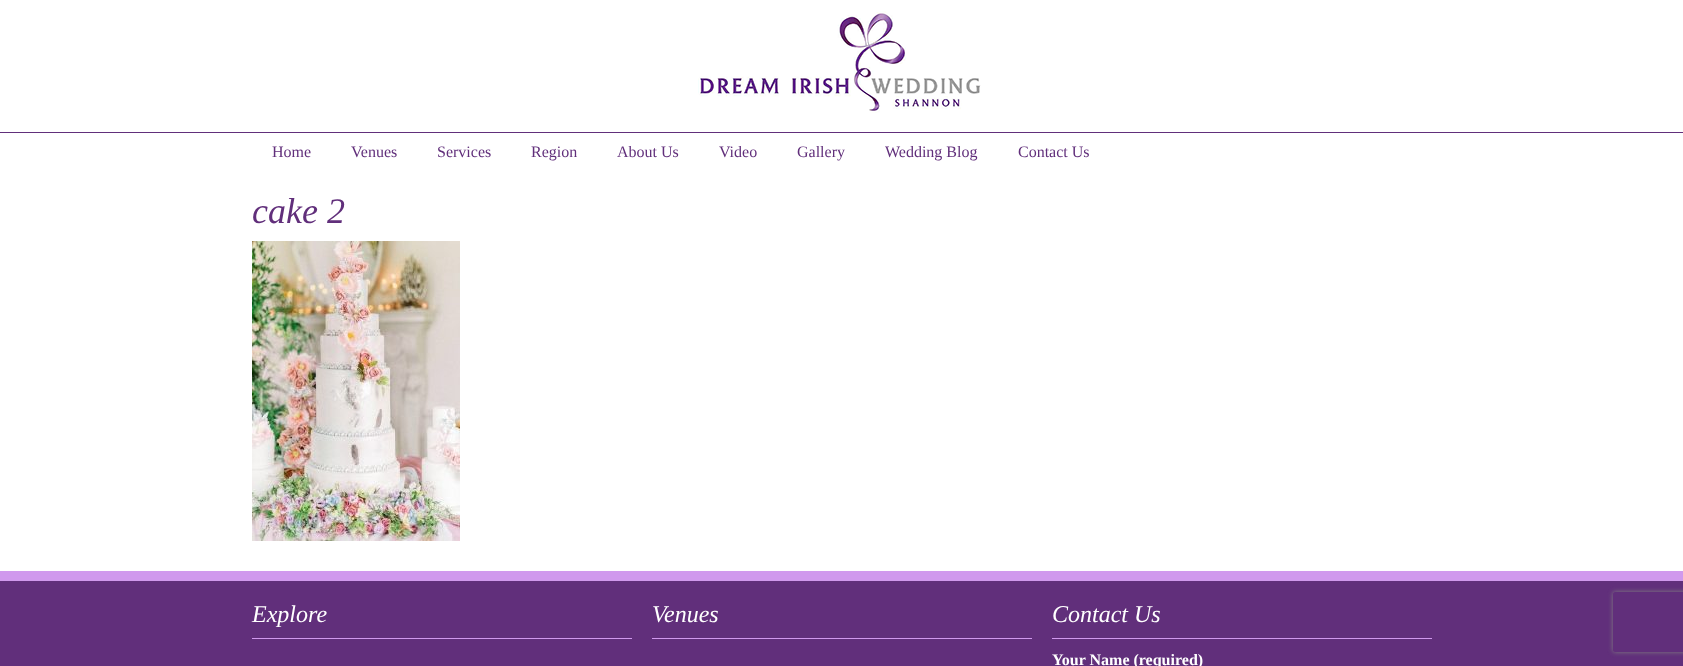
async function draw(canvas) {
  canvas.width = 1683
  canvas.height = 666
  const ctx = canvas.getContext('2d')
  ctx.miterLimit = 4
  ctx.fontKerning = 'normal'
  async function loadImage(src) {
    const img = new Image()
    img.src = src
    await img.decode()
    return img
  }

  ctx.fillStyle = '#fff'
  ctx.fillRect(0, 0, 1683, 666)
  ctx.fillStyle = '#612f7b'
  ctx.fillRect(0, 132, 1683, 1)
  ctx.drawImage(await loadImage('image0.png'), 698, 11, 283, 102)
  ctx.font = '16px Liberation Serif'
  ctx.fillText('Home', 272, 157)
  ctx.fillText('Venues', 351, 157)
  ctx.fillText('Services', 437, 157)
  ctx.fillText('Region', 531, 157)
  ctx.fillText('About Us', 617, 157)
  ctx.fillText('Video', 719, 157)
  ctx.fillText('Gallery', 797, 157)
  ctx.fillText('Wedding Blog', 885, 157)
  ctx.fillText('Contact Us', 1018, 157)
  ctx.font = 'italic 36px Liberation Serif'
  ctx.fillText('cake 2', 252, 223)
  ctx.drawImage(await loadImage('image1.png'), 252, 241, 208, 300)
  ctx.fillRect(0, 581, 1683, 85)
  ctx.fillStyle = '#d099ed'
  ctx.fillRect(0, 571, 1683, 10)
  ctx.fillRect(252, 638, 380, 1)
  ctx.font = 'italic 24px Liberation Serif'
  ctx.fillStyle = '#fff'
  ctx.fillText('Explore', 252, 622)
  ctx.fillStyle = '#d099ed'
  ctx.fillRect(652, 638, 380, 1)
  ctx.fillStyle = '#fff'
  ctx.fillText('Venues', 652, 622)
  ctx.fillStyle = '#d099ed'
  ctx.fillRect(1052, 638, 380, 1)
  ctx.fillStyle = '#fff'
  ctx.fillText('Contact Us', 1052, 622)
  ctx.font = 'bold 16px Liberation Serif'
  ctx.fillText('Your Name (required)', 1052, 665)
  ctx.save()
  ctx.beginPath()
  ctx.moveTo(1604, 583)
  ctx.lineTo(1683, 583)
  ctx.lineTo(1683, 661)
  ctx.lineTo(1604, 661)
  ctx.closePath()
  ctx.moveTo(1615, 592)
  ctx.lineTo(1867, 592)
  ctx.bezierCurveTo(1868, 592, 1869, 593, 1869, 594)
  ctx.lineTo(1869, 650)
  ctx.bezierCurveTo(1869, 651, 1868, 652, 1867, 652)
  ctx.lineTo(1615, 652)
  ctx.bezierCurveTo(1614, 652, 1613, 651, 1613, 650)
  ctx.lineTo(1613, 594)
  ctx.bezierCurveTo(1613, 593, 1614, 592, 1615, 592)
  ctx.closePath()
  ctx.clip('evenodd')
  ctx.fillStyle = '#808080'
  ctx.filter = 'blur(2.5px)'
  ctx.beginPath()
  ctx.roundRect(1613, 592, 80, 60, 2)
  ctx.fill()
  ctx.filter = 'none'
  ctx.restore()
}

draw(document.querySelector('canvas'))
